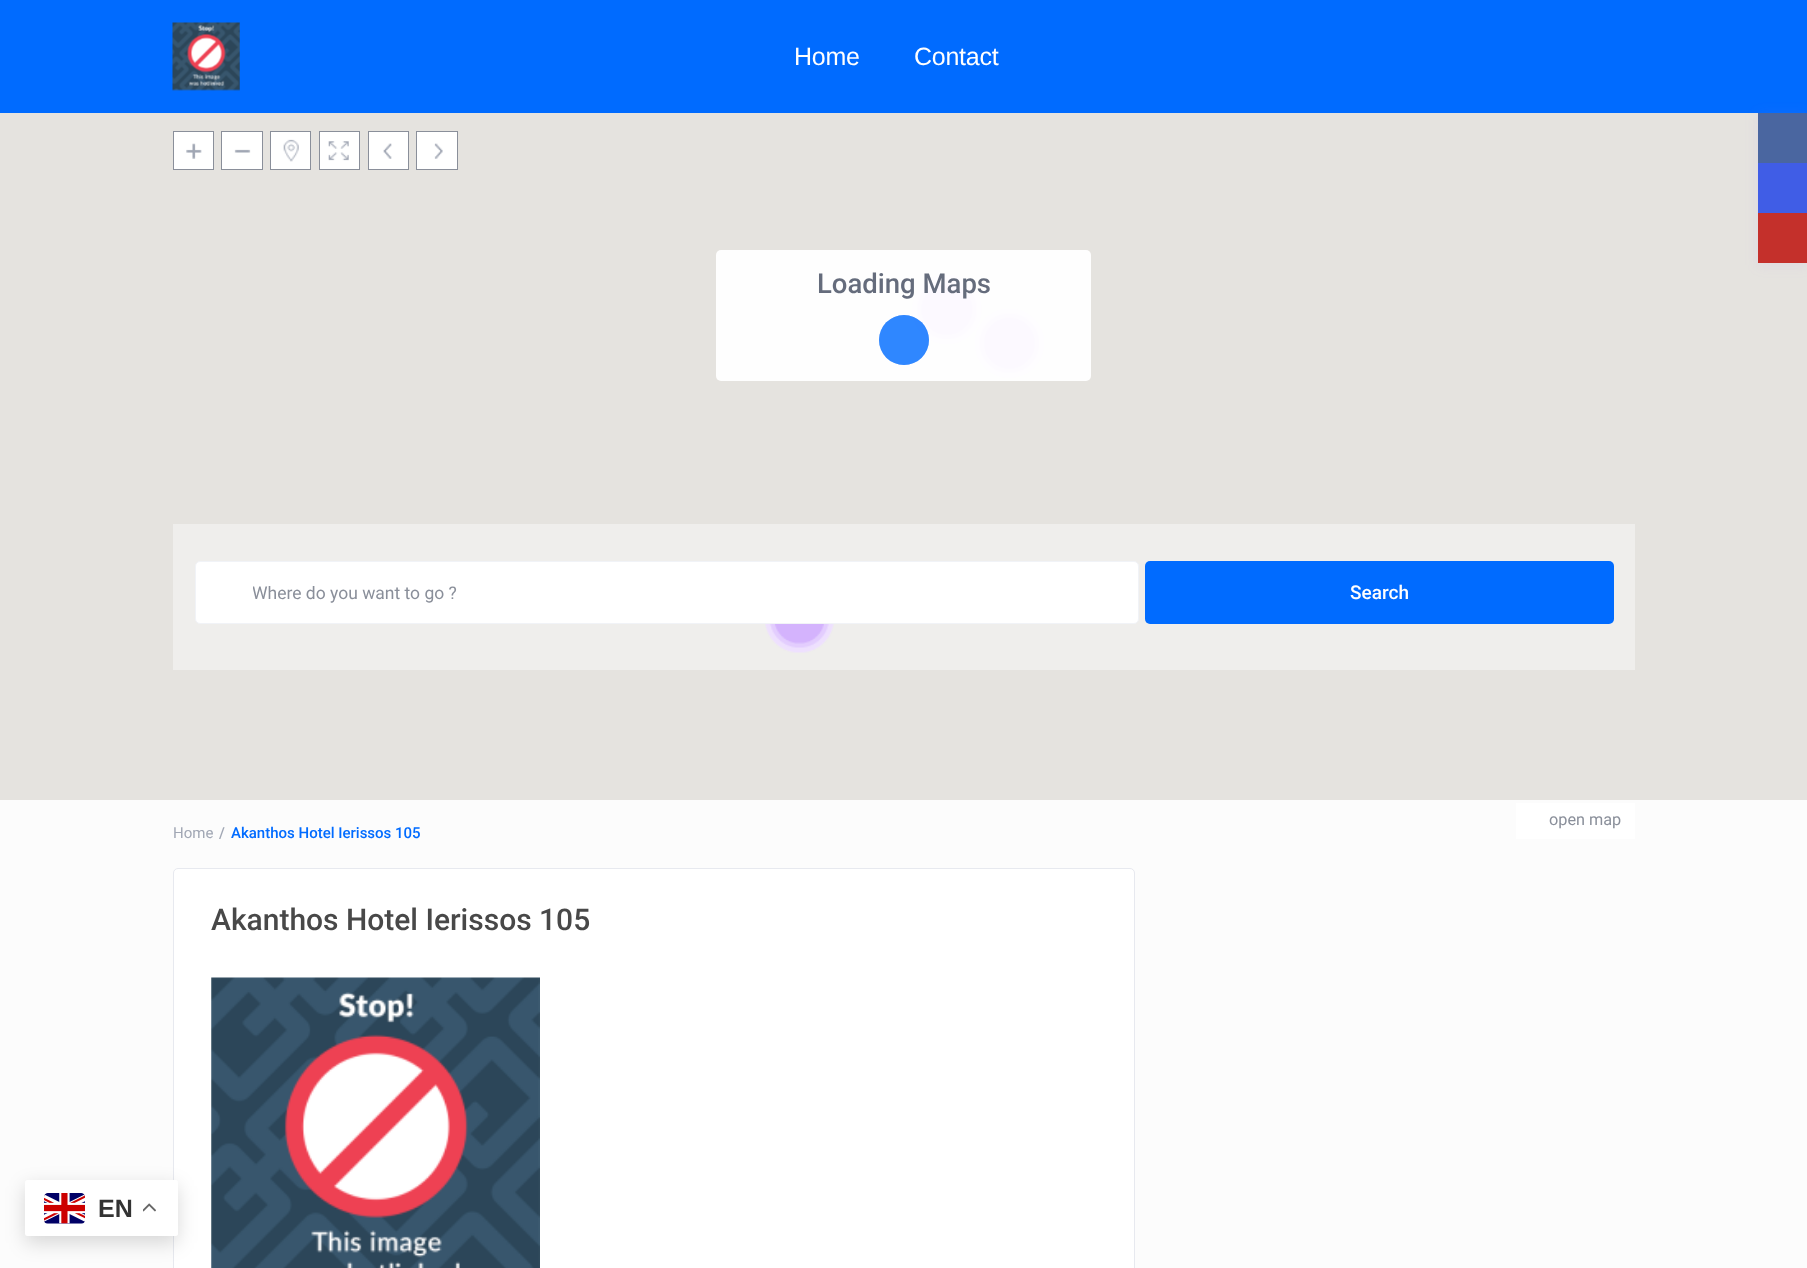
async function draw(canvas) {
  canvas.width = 1807
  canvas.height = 1268
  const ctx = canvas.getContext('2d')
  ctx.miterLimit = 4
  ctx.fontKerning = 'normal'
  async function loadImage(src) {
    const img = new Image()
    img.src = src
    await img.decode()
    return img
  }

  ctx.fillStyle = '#fcfcfc'
  ctx.fillRect(0, 0, 1807, 1268)
  ctx.fillStyle = '#006bff'
  ctx.fillRect(0, 0, 1807, 113)
  ctx.drawImage(await loadImage('image0.png'), 172, 22, 68, 69)
  ctx.letterSpacing = '-0.25px'
  ctx.font = '25px Liberation Sans'
  ctx.fillStyle = '#fff'
  ctx.fillText('Home', 794, 65)
  ctx.fillText('Contact', 914, 65)
  ctx.fillStyle = '#e5e3df'
  ctx.fillRect(0, 113, 1807, 687)
  ctx.fillStyle = '#efeeec'
  ctx.fillRect(173, 524, 1462, 146)
  ctx.drawImage(await loadImage('image1.png'), 912, 275, 70, 69)
  ctx.drawImage(await loadImage('image2.png'), 975, 308, 69, 70)
  ctx.drawImage(await loadImage('image3.png'), 765, 624, 69, 29)
  ctx.fillStyle = '#fff'
  ctx.fillRect(174, 132, 39, 37)
  ctx.drawImage(await loadImage('image4.png'), 186, 143, 16, 16)
  ctx.strokeStyle = '#8a8f9a'
  ctx.strokeRect(173.5, 131.5, 40, 38)
  ctx.fillRect(222, 132, 40, 37)
  ctx.drawImage(await loadImage('image5.png'), 234, 149, 17, 4)
  ctx.strokeRect(221.5, 131.5, 41, 38)
  ctx.fillRect(271, 132, 39, 37)
  ctx.drawImage(await loadImage('image6.png'), 283, 139, 16, 23)
  ctx.strokeRect(270.5, 131.5, 40, 38)
  ctx.fillRect(320, 132, 39, 37)
  ctx.drawImage(await loadImage('image7.png'), 328, 141, 21, 20)
  ctx.strokeRect(319.5, 131.5, 40, 38)
  ctx.fillRect(369, 132, 39, 37)
  ctx.drawImage(await loadImage('image8.png'), 383, 143, 9, 16)
  ctx.strokeRect(368.5, 131.5, 40, 38)
  ctx.fillRect(417, 132, 40, 37)
  ctx.drawImage(await loadImage('image9.png'), 434, 143, 9, 16)
  ctx.strokeRect(416.5, 131.5, 41, 38)
  ctx.fillStyle = '#fffffff2'
  ctx.beginPath()
  ctx.roundRect(716, 250, 375, 131, 5)
  ctx.fill()
  ctx.letterSpacing = '0px'
  ctx.font = '500 27.5px Roboto'
  ctx.fillStyle = '#656c7c'
  ctx.fillText('Loading Maps', 817, 293)
  ctx.fillStyle = '#006bff91'
  ctx.beginPath()
  ctx.arc(904, 340, 25, 0, 2 * Math.PI)
  ctx.fill()
  ctx.beginPath()
  ctx.arc(904, 340, 25, 0, 2 * Math.PI)
  ctx.fill()
  ctx.fillStyle = '#fff'
  ctx.fillRect(1516, 803, 119, 36)
  ctx.font = '16.25px Roboto'
  ctx.fillStyle = '#8a8f9a'
  ctx.fillText('open map', 1549, 825)
  ctx.fillStyle = '#fff'
  ctx.beginPath()
  ctx.roundRect(195.5, 561.5, 943, 62, 4.5)
  ctx.fill()
  ctx.strokeStyle = '#f1f3f7'
  ctx.stroke()
  ctx.save()
  ctx.beginPath()
  ctx.rect(253, 583, 868, 20)
  ctx.clip()
  ctx.font = '17.5px Roboto'
  ctx.fillStyle = '#8a8f9a'
  ctx.fillText('Where do you want to go ?', 252, 599)
  ctx.restore()
  ctx.fillStyle = '#006bff'
  ctx.beginPath()
  ctx.roundRect(1145, 561, 469, 63, 5)
  ctx.fill()
  ctx.font = '500 19px Roboto'
  ctx.fillStyle = '#fff'
  ctx.fillText('Search', 1350, 599)
  ctx.font = '15px Roboto'
  ctx.fillStyle = '#a1a7b4'
  ctx.fillText('Home', 173, 838)
  ctx.font = '500 15px Roboto'
  ctx.fillText('/', 219, 838)
  ctx.fillStyle = '#006bff'
  ctx.fillText('Akanthos Hotel Ierissos 105', 231, 838)
  ctx.fillStyle = '#fff'
  ctx.beginPath()
  ctx.roundRect(173.5, 868.5, 961, 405, 4.5)
  ctx.fill()
  ctx.strokeStyle = '#e7e9ef'
  ctx.stroke()
  ctx.font = '500 30px Roboto'
  ctx.fillStyle = '#484848'
  ctx.fillText('Akanthos Hotel Ierissos 105', 211, 930)
  ctx.drawImage(await loadImage('image10.png'), 211, 977, 329, 291)
  ctx.fillStyle = '#b57ffa1a'
  ctx.filter = 'blur(7px)'
  ctx.beginPath()
  ctx.rect(1758, 115, 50, 150)
  ctx.fill()
  ctx.filter = 'none'
  ctx.fillStyle = '#4a66a0'
  ctx.fillRect(1758, 113, 49, 50)
  ctx.fillStyle = '#405de6'
  ctx.fillRect(1758, 163, 49, 50)
  ctx.fillStyle = '#c4302b'
  ctx.fillRect(1758, 213, 49, 50)
  ctx.fillStyle = '#00000026'
  ctx.filter = 'blur(9.5px)'
  ctx.beginPath()
  ctx.roundRect(25, 1186, 153, 57, 2.5)
  ctx.fill()
  ctx.filter = 'none'
  ctx.fillStyle = '#fff'
  ctx.beginPath()
  ctx.roundRect(25, 1180, 153, 56, 2.5)
  ctx.fill()
  ctx.drawImage(await loadImage('image11.png'), 44, 1193, 41, 31)
  ctx.font = 'bold 25px Liberation Sans'
  ctx.fillStyle = '#333'
  ctx.fillText('EN', 98, 1217)
  ctx.drawImage(await loadImage('image12.png'), 143, 1203, 13, 9)
}

draw(document.querySelector('canvas'))
